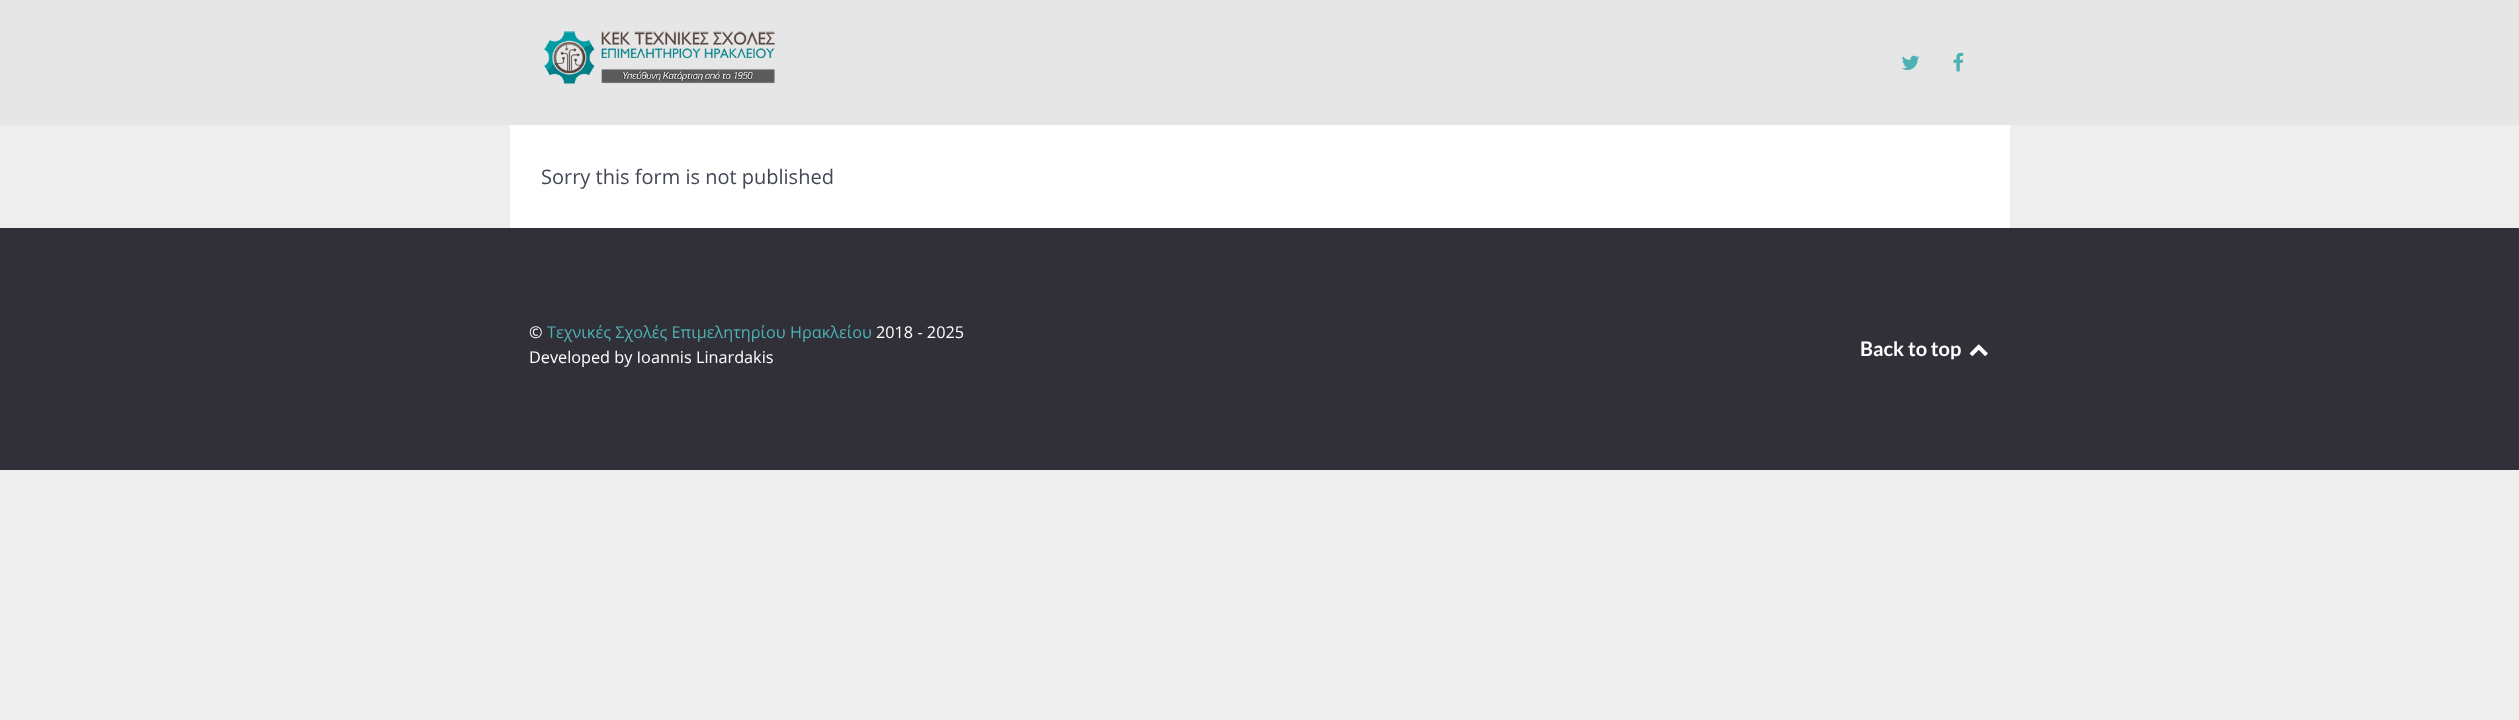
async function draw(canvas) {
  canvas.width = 2519
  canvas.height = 720
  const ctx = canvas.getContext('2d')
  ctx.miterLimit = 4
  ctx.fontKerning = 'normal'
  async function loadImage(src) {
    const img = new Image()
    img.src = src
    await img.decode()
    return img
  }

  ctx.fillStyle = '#eee'
  ctx.fillRect(0, 0, 2519, 720)
  ctx.fillStyle = '#e6e6e6'
  ctx.fillRect(0, 0, 2519, 125)
  ctx.drawImage(await loadImage('image0.png'), 544, 31, 231, 53)
  ctx.drawImage(await loadImage('image1.png'), 1902, 55, 18, 15)
  ctx.drawImage(await loadImage('image2.png'), 1953, 52, 11, 20)
  ctx.fillStyle = '#fff'
  ctx.fillRect(510, 125, 1500, 103)
  ctx.font = '20px Open Sans'
  ctx.fillStyle = '#424753'
  ctx.fillText('Sorry this form is not published', 541, 184)
  ctx.fillStyle = '#312f38'
  ctx.fillRect(0, 228, 2519, 242)
  ctx.font = '16.25px Open Sans'
  ctx.fillStyle = '#fff'
  ctx.fillText('©', 529, 338)
  ctx.fillStyle = '#4db2b3'
  ctx.fillText('Τεχνικές Σχολές Επιμελητηρίου Ηρακλείου', 547, 338)
  ctx.fillStyle = '#fff'
  ctx.fillText('2018 - 2025', 876, 338)
  ctx.fillText('Developed by Ioannis Linardakis', 529, 363)
  ctx.font = 'bold 20px Lato'
  ctx.fillText('Back to top', 1860, 356)
  ctx.drawImage(await loadImage('image3.png'), 1969, 344, 19, 12)
}

draw(document.querySelector('canvas'))
